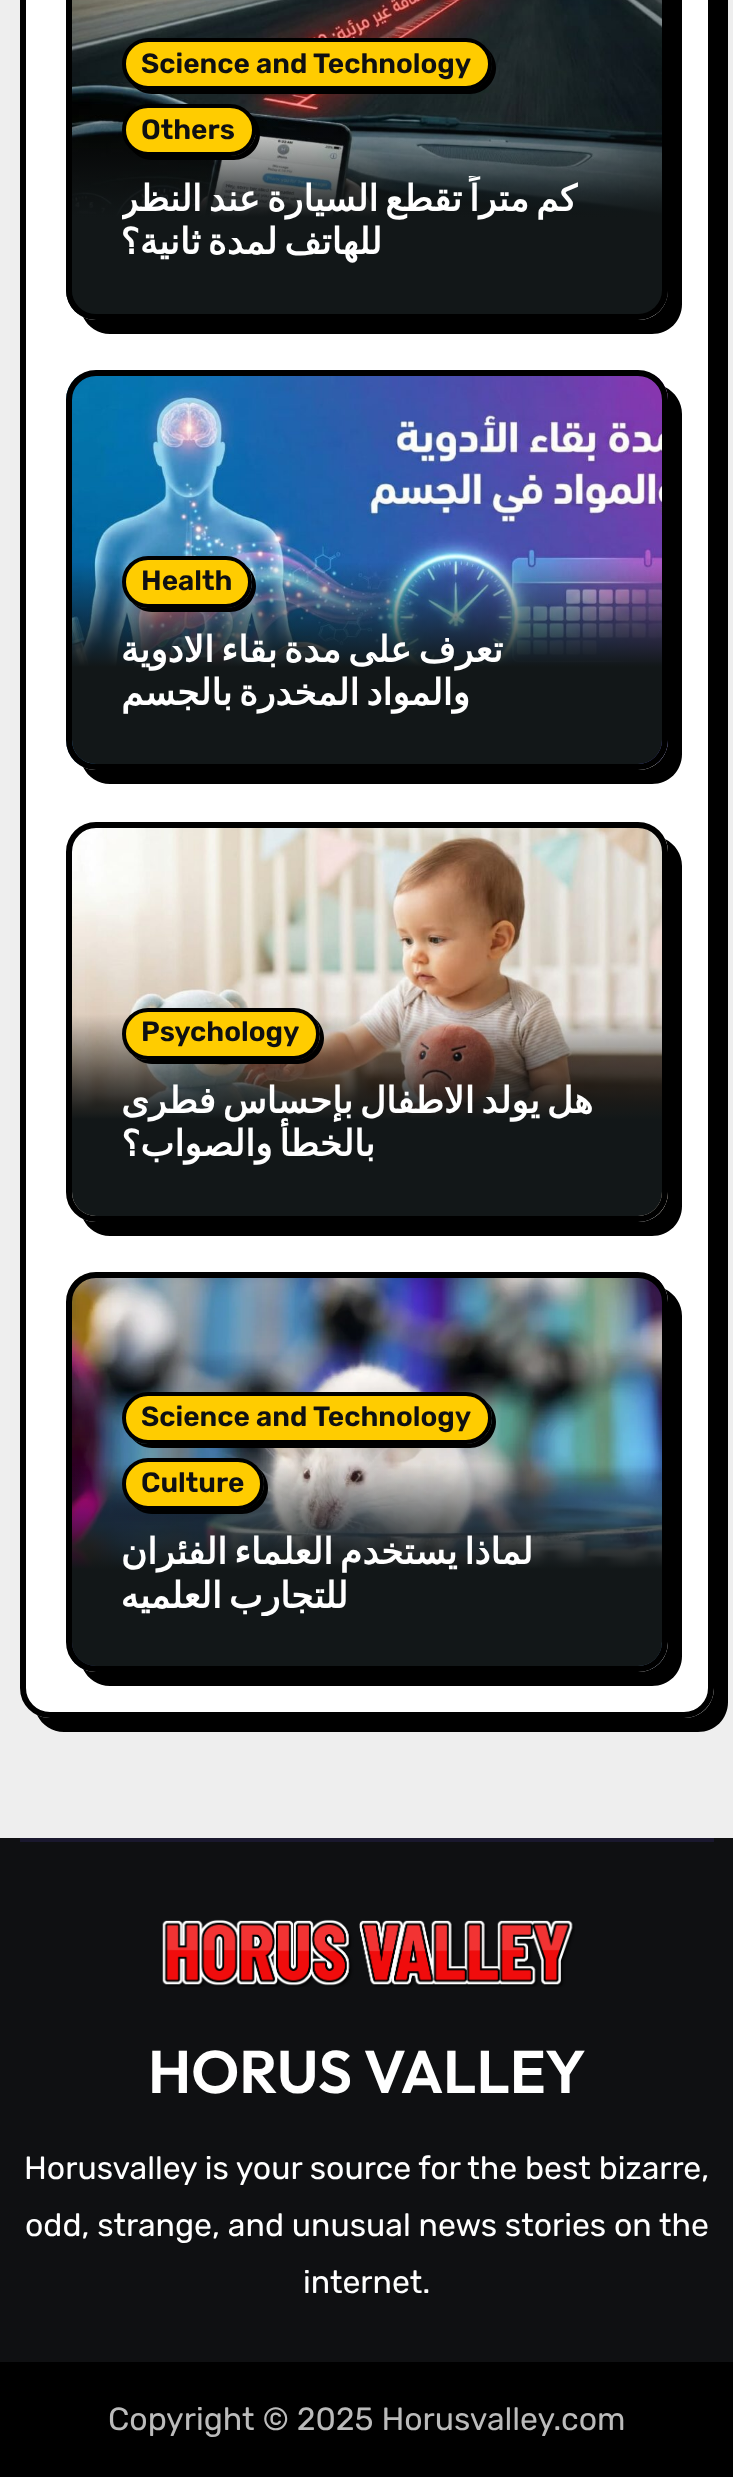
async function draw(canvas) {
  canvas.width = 733
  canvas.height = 2477
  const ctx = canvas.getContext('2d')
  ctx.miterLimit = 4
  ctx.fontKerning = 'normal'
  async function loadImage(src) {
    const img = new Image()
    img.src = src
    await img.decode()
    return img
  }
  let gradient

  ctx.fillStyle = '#eee'
  ctx.fillRect(0, 0, 733, 2477)
  ctx.fillStyle = '#000'
  ctx.beginPath()
  ctx.moveTo(37, 1715)
  ctx.bezierCurveTo(42, 1725, 52, 1732, 64, 1732)
  ctx.lineTo(698, 1732)
  ctx.bezierCurveTo(715, 1732, 728, 1719, 728, 1702)
  ctx.lineTo(728, -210)
  ctx.bezierCurveTo(728, -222, 721, -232, 711, -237)
  ctx.bezierCurveTo(713, -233, 714, -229, 714, -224)
  ctx.lineTo(714, 1688)
  ctx.bezierCurveTo(714, 1705, 701, 1718, 684, 1718)
  ctx.lineTo(50, 1718)
  ctx.bezierCurveTo(45, 1718, 41, 1717, 37, 1715)
  ctx.closePath()
  ctx.fill()
  ctx.fillStyle = '#fff'
  ctx.beginPath()
  ctx.roundRect(23, -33, 688, 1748, 27)
  ctx.fill()
  ctx.strokeStyle = '#000'
  ctx.lineWidth = 6
  ctx.stroke()
  ctx.fillStyle = '#000'
  ctx.beginPath()
  ctx.moveTo(83, 317)
  ctx.bezierCurveTo(88, 327, 98, 334, 110, 334)
  ctx.lineTo(652, 334)
  ctx.bezierCurveTo(669, 334, 682, 321, 682, 304)
  ctx.lineTo(682, -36)
  ctx.bezierCurveTo(682, -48, 675, -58, 665, -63)
  ctx.bezierCurveTo(667, -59, 668, -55, 668, -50)
  ctx.lineTo(668, 290)
  ctx.bezierCurveTo(668, 307, 655, 320, 638, 320)
  ctx.lineTo(96, 320)
  ctx.bezierCurveTo(91, 320, 87, 319, 83, 317)
  ctx.closePath()
  ctx.fill()
  ctx.drawImage(await loadImage('image0.png'), 66, 0, 602, 314)
  ctx.beginPath()
  ctx.roundRect(69, -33, 596, 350, 27)
  ctx.stroke()
  gradient = ctx.createLinearGradient(367, -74, 367, 314)
  gradient.addColorStop(0.48, '#12171800')
  gradient.addColorStop(0.75, '#121718')
  ctx.fillStyle = gradient
  ctx.beginPath()
  ctx.roundRect(72, -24, 590, 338, 24)
  ctx.fill()
  ctx.fillStyle = '#000'
  ctx.beginPath()
  ctx.moveTo(132, 84)
  ctx.bezierCurveTo(136, 90, 144, 94, 152, 94)
  ctx.lineTo(470, 94)
  ctx.bezierCurveTo(484, 94, 496, 82, 496, 68)
  ctx.bezierCurveTo(496, 60, 492, 52, 486, 48)
  ctx.bezierCurveTo(490, 52, 492, 58, 492, 64)
  ctx.bezierCurveTo(492, 78, 480, 90, 466, 90)
  ctx.lineTo(148, 90)
  ctx.bezierCurveTo(142, 90, 136, 88, 132, 84)
  ctx.closePath()
  ctx.fill()
  ctx.fillStyle = '#fc0'
  ctx.beginPath()
  ctx.roundRect(124, 40, 366, 48, 24)
  ctx.fill()
  ctx.lineWidth = 4
  ctx.stroke()
  ctx.font = '600 28px Rubik'
  ctx.fillStyle = '#0f1012'
  ctx.fillText('Science and Technology', 141, 73)
  ctx.fillStyle = '#000'
  ctx.beginPath()
  ctx.moveTo(132, 150)
  ctx.bezierCurveTo(136, 156, 144, 160, 152, 160)
  ctx.lineTo(234, 160)
  ctx.bezierCurveTo(248, 160, 260, 148, 260, 134)
  ctx.bezierCurveTo(260, 126, 256, 118, 250, 114)
  ctx.bezierCurveTo(254, 118, 256, 124, 256, 130)
  ctx.bezierCurveTo(256, 144, 244, 156, 230, 156)
  ctx.lineTo(148, 156)
  ctx.bezierCurveTo(142, 156, 136, 154, 132, 150)
  ctx.closePath()
  ctx.fill()
  ctx.fillStyle = '#fc0'
  ctx.beginPath()
  ctx.roundRect(124, 106, 130, 48, 24)
  ctx.fill()
  ctx.stroke()
  ctx.fillStyle = '#0f1012'
  ctx.fillText('Others', 141, 139)
  ctx.save()
  ctx.beginPath()
  ctx.rect(122, 176, 490, 88)
  ctx.clip()
  ctx.wordSpacing = '-4.5px'
  ctx.direction = 'rtl'
  ctx.font = 'bold 36px DejaVu Sans'
  ctx.fillStyle = '#fff'
  ctx.fillText('كم متراً تقطع السيارة عند النظر', 577, 211)
  ctx.restore()
  ctx.wordSpacing = '-4.5px'
  ctx.direction = 'rtl'
  ctx.font = 'bold 36px DejaVu Sans'
  ctx.fillStyle = '#fff'
  ctx.fillText('للهاتف لمدة ثانية؟', 382, 254)
  ctx.fillStyle = '#000'
  ctx.beginPath()
  ctx.moveTo(83, 767)
  ctx.bezierCurveTo(88, 777, 98, 784, 110, 784)
  ctx.lineTo(652, 784)
  ctx.bezierCurveTo(669, 784, 682, 771, 682, 754)
  ctx.lineTo(682, 414)
  ctx.bezierCurveTo(682, 402, 675, 392, 665, 387)
  ctx.bezierCurveTo(667, 391, 668, 395, 668, 400)
  ctx.lineTo(668, 740)
  ctx.bezierCurveTo(668, 757, 655, 770, 638, 770)
  ctx.lineTo(96, 770)
  ctx.bezierCurveTo(91, 770, 87, 769, 83, 767)
  ctx.closePath()
  ctx.fill()
  ctx.drawImage(await loadImage('image1.png'), 66, 376, 602, 388)
  ctx.beginPath()
  ctx.roundRect(69, 373, 596, 394, 27)
  ctx.lineWidth = 6
  ctx.stroke()
  gradient = ctx.createLinearGradient(367, 376, 367, 764)
  gradient.addColorStop(0.48, '#12171800')
  gradient.addColorStop(0.75, '#121718')
  ctx.fillStyle = gradient
  ctx.beginPath()
  ctx.roundRect(72, 376, 590, 388, 24)
  ctx.fill()
  ctx.fillStyle = '#000'
  ctx.beginPath()
  ctx.moveTo(132, 602)
  ctx.bezierCurveTo(136, 608, 144, 612, 152, 612)
  ctx.lineTo(230, 612)
  ctx.bezierCurveTo(244, 612, 256, 600, 256, 586)
  ctx.bezierCurveTo(256, 578, 252, 570, 246, 566)
  ctx.bezierCurveTo(250, 570, 252, 576, 252, 582)
  ctx.bezierCurveTo(252, 596, 240, 608, 226, 608)
  ctx.lineTo(148, 608)
  ctx.bezierCurveTo(142, 608, 136, 606, 132, 602)
  ctx.closePath()
  ctx.fill()
  ctx.fillStyle = '#fc0'
  ctx.beginPath()
  ctx.roundRect(124, 558, 126, 48, 24)
  ctx.fill()
  ctx.lineWidth = 4
  ctx.stroke()
  ctx.wordSpacing = '0px'
  ctx.direction = 'ltr'
  ctx.font = '600 28px Rubik'
  ctx.fillStyle = '#0f1012'
  ctx.fillText('Health', 141, 590)
  ctx.wordSpacing = '-4.5px'
  ctx.direction = 'rtl'
  ctx.font = 'bold 36px DejaVu Sans'
  ctx.fillStyle = '#fff'
  ctx.fillText('تعرف على مدة بقاء الادوية', 503, 662)
  ctx.fillText('والمواد المخدرة بالجسم', 470, 705)
  ctx.fillStyle = '#000'
  ctx.beginPath()
  ctx.moveTo(83, 1219)
  ctx.bezierCurveTo(88, 1229, 98, 1236, 110, 1236)
  ctx.lineTo(652, 1236)
  ctx.bezierCurveTo(669, 1236, 682, 1223, 682, 1206)
  ctx.lineTo(682, 866)
  ctx.bezierCurveTo(682, 854, 675, 844, 665, 839)
  ctx.bezierCurveTo(667, 843, 668, 847, 668, 852)
  ctx.lineTo(668, 1192)
  ctx.bezierCurveTo(668, 1209, 655, 1222, 638, 1222)
  ctx.lineTo(96, 1222)
  ctx.bezierCurveTo(91, 1222, 87, 1221, 83, 1219)
  ctx.closePath()
  ctx.fill()
  ctx.drawImage(await loadImage('image2.png'), 66, 828, 602, 388)
  ctx.beginPath()
  ctx.roundRect(69, 825, 596, 394, 27)
  ctx.lineWidth = 6
  ctx.stroke()
  gradient = ctx.createLinearGradient(367, 828, 367, 1216)
  gradient.addColorStop(0.48, '#12171800')
  gradient.addColorStop(0.75, '#121718')
  ctx.fillStyle = gradient
  ctx.beginPath()
  ctx.roundRect(72, 828, 590, 388, 24)
  ctx.fill()
  ctx.fillStyle = '#000'
  ctx.beginPath()
  ctx.moveTo(132, 1054)
  ctx.bezierCurveTo(136, 1060, 144, 1064, 152, 1064)
  ctx.lineTo(298, 1064)
  ctx.bezierCurveTo(312, 1064, 324, 1052, 324, 1038)
  ctx.bezierCurveTo(324, 1030, 320, 1022, 314, 1018)
  ctx.bezierCurveTo(318, 1022, 320, 1028, 320, 1034)
  ctx.bezierCurveTo(320, 1048, 308, 1060, 294, 1060)
  ctx.lineTo(148, 1060)
  ctx.bezierCurveTo(142, 1060, 136, 1058, 132, 1054)
  ctx.closePath()
  ctx.fill()
  ctx.fillStyle = '#fc0'
  ctx.beginPath()
  ctx.roundRect(124, 1010, 194, 48, 24)
  ctx.fill()
  ctx.lineWidth = 4
  ctx.stroke()
  ctx.wordSpacing = '0px'
  ctx.direction = 'ltr'
  ctx.font = '600 28px Rubik'
  ctx.fillStyle = '#0f1012'
  ctx.fillText('Psychology', 141, 1041)
  ctx.wordSpacing = '-4.5px'
  ctx.direction = 'rtl'
  ctx.font = 'bold 36px DejaVu Sans'
  ctx.fillStyle = '#fff'
  ctx.fillText('هل يولد الاطفال بإحساس فطرى', 593, 1113)
  ctx.fillText('بالخطأ والصواب؟', 375, 1156)
  ctx.fillStyle = '#000'
  ctx.beginPath()
  ctx.moveTo(83, 1669)
  ctx.bezierCurveTo(88, 1679, 98, 1686, 110, 1686)
  ctx.lineTo(652, 1686)
  ctx.bezierCurveTo(669, 1686, 682, 1673, 682, 1656)
  ctx.lineTo(682, 1316)
  ctx.bezierCurveTo(682, 1304, 675, 1294, 665, 1289)
  ctx.bezierCurveTo(667, 1293, 668, 1297, 668, 1302)
  ctx.lineTo(668, 1642)
  ctx.bezierCurveTo(668, 1659, 655, 1672, 638, 1672)
  ctx.lineTo(96, 1672)
  ctx.bezierCurveTo(91, 1672, 87, 1671, 83, 1669)
  ctx.closePath()
  ctx.fill()
  ctx.drawImage(await loadImage('image3.png'), 72, 1276, 590, 394)
  ctx.beginPath()
  ctx.roundRect(69, 1275, 596, 394, 27)
  ctx.lineWidth = 6
  ctx.stroke()
  gradient = ctx.createLinearGradient(367, 1278, 367, 1666)
  gradient.addColorStop(0.48, '#12171800')
  gradient.addColorStop(0.75, '#121718')
  ctx.fillStyle = gradient
  ctx.beginPath()
  ctx.roundRect(72, 1278, 590, 388, 24)
  ctx.fill()
  ctx.fillStyle = '#000'
  ctx.beginPath()
  ctx.moveTo(132, 1438)
  ctx.bezierCurveTo(136, 1444, 144, 1448, 152, 1448)
  ctx.lineTo(470, 1448)
  ctx.bezierCurveTo(484, 1448, 496, 1436, 496, 1422)
  ctx.bezierCurveTo(496, 1414, 492, 1406, 486, 1402)
  ctx.bezierCurveTo(490, 1406, 492, 1412, 492, 1418)
  ctx.bezierCurveTo(492, 1432, 480, 1444, 466, 1444)
  ctx.lineTo(148, 1444)
  ctx.bezierCurveTo(142, 1444, 136, 1442, 132, 1438)
  ctx.closePath()
  ctx.fill()
  ctx.fillStyle = '#fc0'
  ctx.beginPath()
  ctx.roundRect(124, 1394, 366, 48, 24)
  ctx.fill()
  ctx.lineWidth = 4
  ctx.stroke()
  ctx.wordSpacing = '0px'
  ctx.direction = 'ltr'
  ctx.font = '600 28px Rubik'
  ctx.fillStyle = '#0f1012'
  ctx.fillText('Science and Technology', 141, 1426)
  ctx.fillStyle = '#000'
  ctx.beginPath()
  ctx.moveTo(132, 1504)
  ctx.bezierCurveTo(136, 1510, 144, 1514, 152, 1514)
  ctx.lineTo(242, 1514)
  ctx.bezierCurveTo(256, 1514, 268, 1502, 268, 1488)
  ctx.bezierCurveTo(268, 1480, 264, 1472, 258, 1468)
  ctx.bezierCurveTo(262, 1472, 264, 1478, 264, 1484)
  ctx.bezierCurveTo(264, 1498, 252, 1510, 238, 1510)
  ctx.lineTo(148, 1510)
  ctx.bezierCurveTo(142, 1510, 136, 1508, 132, 1504)
  ctx.closePath()
  ctx.fill()
  ctx.fillStyle = '#fc0'
  ctx.beginPath()
  ctx.roundRect(124, 1460, 138, 48, 24)
  ctx.fill()
  ctx.stroke()
  ctx.fillStyle = '#0f1012'
  ctx.fillText('Culture', 141, 1492)
  ctx.wordSpacing = '-4.5px'
  ctx.direction = 'rtl'
  ctx.font = 'bold 36px DejaVu Sans'
  ctx.fillStyle = '#fff'
  ctx.fillText('لماذا يستخدم العلماء الفئران', 533, 1564)
  ctx.save()
  ctx.beginPath()
  ctx.rect(122, 1530, 490, 86)
  ctx.clip()
  ctx.fillText('للتجارب العلميه', 348, 1608)
  ctx.restore()
  ctx.fillStyle = '#0f1012'
  ctx.fillRect(0, 1838, 733, 524)
  ctx.fillStyle = '#1a182e'
  ctx.fillRect(20, 1838, 694, 4)
  ctx.drawImage(await loadImage('image4.png'), 162, 1919, 413, 68)
  ctx.wordSpacing = '0px'
  ctx.direction = 'ltr'
  ctx.font = '600 60px Outfit'
  ctx.fillStyle = '#fff'
  ctx.fillText('HORUS VALLEY', 148, 2093)
  ctx.font = '32px Rubik'
  ctx.fillText('Horusvalley is your source for the best bizarre,', 24, 2179)
  ctx.fillText('odd, strange, and unusual news stories on the', 25, 2236)
  ctx.fillText('internet.', 303, 2293)
  ctx.fillStyle = '#000'
  ctx.fillRect(0, 2362, 733, 115)
  ctx.fillStyle = '#bbb'
  ctx.fillText('Copyright © 2025 Horusvalley.com', 108, 2430)
}

draw(document.querySelector('canvas'))
